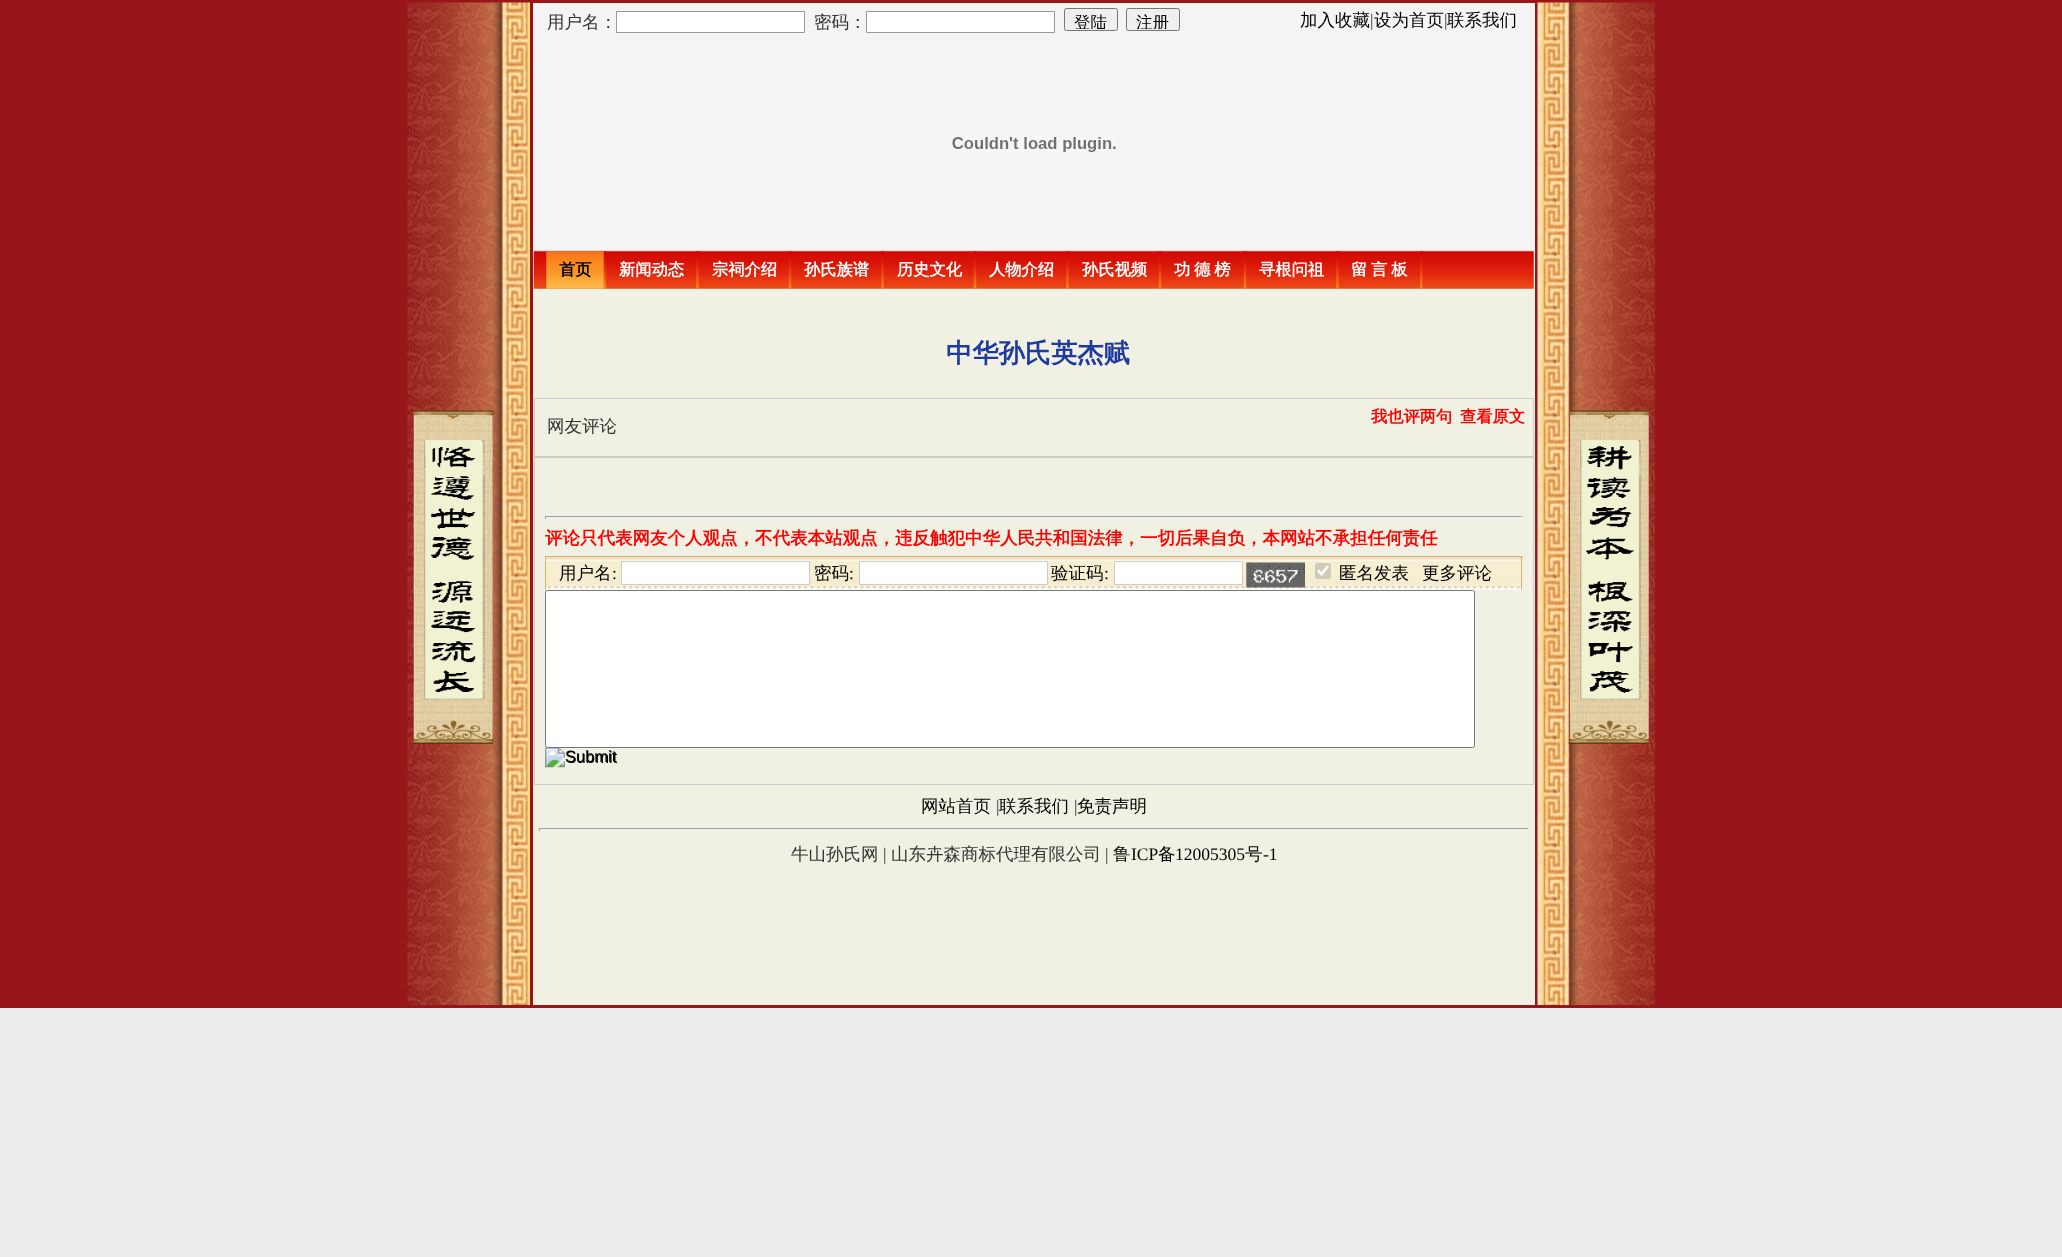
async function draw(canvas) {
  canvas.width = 2062
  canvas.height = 1257
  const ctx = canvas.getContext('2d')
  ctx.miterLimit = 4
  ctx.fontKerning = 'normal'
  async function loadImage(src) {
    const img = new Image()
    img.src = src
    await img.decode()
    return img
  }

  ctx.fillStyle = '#ededed'
  ctx.fillRect(0, 0, 2062, 1257)
  ctx.fillStyle = '#981619'
  ctx.fillRect(0, 0, 2062, 1008)
  ctx.drawImage(await loadImage('image0.png'), 407, 2, 123, 1003)
  ctx.drawImage(await loadImage('image1.png'), 412, 410, 83, 334)
  ctx.fillStyle = '#f1f1e3'
  ctx.fillRect(533, 3, 1002, 1002)
  ctx.fillStyle = '#dcdcdc'
  ctx.fillRect(534, 250, 1000, 1)
  ctx.fillStyle = '#f4f4f4'
  ctx.fillRect(534, 4, 1000, 246)
  ctx.font = '500 17.5px WenQuanYi Zen Hei'
  ctx.fillStyle = '#333'
  ctx.fillText('用户名：', 547, 28)
  ctx.fillStyle = '#fff'
  ctx.beginPath()
  ctx.rect(616.5, 11.5, 188, 21)
  ctx.fill()
  ctx.strokeStyle = '#999'
  ctx.stroke()
  ctx.fillStyle = '#333'
  ctx.fillText('密码：', 814, 28)
  ctx.fillStyle = '#fff'
  ctx.beginPath()
  ctx.rect(866.5, 11.5, 188, 21)
  ctx.fill()
  ctx.stroke()
  ctx.fillStyle = '#efefef'
  ctx.beginPath()
  ctx.roundRect(1064.5, 8.5, 53, 22, 2)
  ctx.fill()
  ctx.strokeStyle = '#767676'
  ctx.stroke()
  ctx.save()
  ctx.beginPath()
  ctx.rect(1066, 10, 49, 19)
  ctx.clip()
  ctx.font = '500 16.5px WenQuanYi Zen Hei'
  ctx.fillStyle = '#000'
  ctx.fillText('登陆', 1074, 28)
  ctx.restore()
  ctx.beginPath()
  ctx.roundRect(1126.5, 8.5, 53, 22, 2)
  ctx.fill()
  ctx.stroke()
  ctx.save()
  ctx.beginPath()
  ctx.rect(1129, 10, 49, 19)
  ctx.clip()
  ctx.font = '500 16.5px WenQuanYi Zen Hei'
  ctx.fillStyle = '#000'
  ctx.fillText('注册', 1136, 28)
  ctx.restore()
  ctx.fillStyle = '#000'
  ctx.fillText('加入收藏', 1300, 26)
  ctx.font = '17.5px Liberation Serif'
  ctx.fillStyle = '#333'
  ctx.fillText('|', 1370, 26)
  ctx.font = '500 17.5px WenQuanYi Zen Hei'
  ctx.fillStyle = '#000'
  ctx.fillText('设为首页', 1374, 26)
  ctx.font = '17.5px Liberation Serif'
  ctx.fillStyle = '#333'
  ctx.fillText('|', 1444, 26)
  ctx.font = '500 17.5px WenQuanYi Zen Hei'
  ctx.fillStyle = '#000'
  ctx.fillText('联系我们', 1447, 26)
  ctx.drawImage(await loadImage('image2.png'), 952, 137, 164, 15)
  ctx.drawImage(await loadImage('image3.png'), 533, 251, 1001, 38)
  ctx.drawImage(await loadImage('image4.png'), 603, 251, 4, 38)
  ctx.drawImage(await loadImage('image5.png'), 546, 251, 58, 38)
  ctx.font = 'bold 16.25px WenQuanYi Zen Hei'
  ctx.fillText('首页', 559, 275)
  ctx.drawImage(await loadImage('image6.png'), 696, 251, 3, 38)
  ctx.fillStyle = '#fff'
  ctx.fillText('新闻动态', 619, 275)
  ctx.drawImage(await loadImage('image4.png'), 788, 251, 4, 38)
  ctx.fillText('宗祠介绍', 712, 275)
  ctx.drawImage(await loadImage('image6.png'), 881, 251, 3, 38)
  ctx.fillText('孙氏族谱', 804, 275)
  ctx.drawImage(await loadImage('image4.png'), 973, 251, 4, 38)
  ctx.fillText('历史文化', 897, 275)
  ctx.drawImage(await loadImage('image6.png'), 1066, 251, 3, 38)
  ctx.fillText('人物介绍', 989, 275)
  ctx.drawImage(await loadImage('image4.png'), 1158, 251, 4, 38)
  ctx.fillText('孙氏视频', 1082, 275)
  ctx.drawImage(await loadImage('image4.png'), 1243, 251, 4, 38)
  ctx.wordSpacing = '-1px'
  ctx.fillText('功 德 榜', 1174, 275)
  ctx.drawImage(await loadImage('image6.png'), 1336, 251, 3, 38)
  ctx.wordSpacing = '0px'
  ctx.fillText('寻根问祖', 1259, 275)
  ctx.drawImage(await loadImage('image7.png'), 1420, 251, 3, 38)
  ctx.wordSpacing = '-1px'
  ctx.fillText('留 言 板', 1351, 275)
  ctx.wordSpacing = '0px'
  ctx.font = 'bold 26.25px WenQuanYi Zen Hei'
  ctx.fillStyle = '#1e3a9e'
  ctx.fillText('中华孙氏英杰赋', 946, 362)
  ctx.fillStyle = '#ccc'
  ctx.fillRect(534, 398, 1000, 387)
  ctx.fillStyle = '#f1f1e3'
  ctx.fillRect(535, 399, 998, 57)
  ctx.font = '500 17.5px WenQuanYi Zen Hei'
  ctx.fillStyle = '#333'
  ctx.fillText('网友评论', 547, 432)
  ctx.font = 'bold 16.25px WenQuanYi Zen Hei'
  ctx.fillStyle = '#f00'
  ctx.fillText('我也评两句', 1371, 422)
  ctx.fillText('查看原文', 1460, 422)
  ctx.fillStyle = '#f1f1e3'
  ctx.fillRect(535, 458, 998, 326)
  ctx.fillStyle = '#9f9f9f'
  ctx.fillRect(545, 516, 978, 1)
  ctx.fillStyle = '#eee'
  ctx.fillRect(1521, 516, 1, 3)
  ctx.fillRect(545, 518, 978, 1)
  ctx.fillStyle = '#9f9f9f'
  ctx.fillRect(545, 516, 1, 3)
  ctx.font = 'bold 17.5px WenQuanYi Zen Hei'
  ctx.fillStyle = '#f00'
  ctx.fillText('评论只代表网友个人观点，不代表本站观点，违反触犯中华人民共和国法律，一切后果自负，本网站不承担任何责任', 545, 544)
  ctx.fillStyle = '#e9f2fb'
  ctx.fillRect(546, 557, 977, 33)
  ctx.drawImage(await loadImage('image8.png'), 546, 557, 977, 33)
  ctx.fillStyle = '#d8b072'
  ctx.fillRect(545, 556, 978, 1)
  ctx.fillRect(1521, 556, 1, 34)
  ctx.fillRect(545, 556, 1, 34)
  ctx.font = '500 17.5px WenQuanYi Zen Hei'
  ctx.fillStyle = '#000'
  ctx.fillText('用户名', 559, 579)
  ctx.font = '17.5px Liberation Serif'
  ctx.fillText(':', 612, 579)
  ctx.fillStyle = '#fff'
  ctx.beginPath()
  ctx.rect(621.5, 561.5, 188, 23)
  ctx.fill()
  ctx.strokeStyle = '#ccc'
  ctx.stroke()
  ctx.font = '500 17.5px WenQuanYi Zen Hei'
  ctx.fillStyle = '#000'
  ctx.fillText('密码', 814, 579)
  ctx.font = '17.5px Liberation Serif'
  ctx.fillText(':', 849, 579)
  ctx.fillStyle = '#fff'
  ctx.beginPath()
  ctx.rect(859.5, 561.5, 188, 23)
  ctx.fill()
  ctx.stroke()
  ctx.font = '500 17.5px WenQuanYi Zen Hei'
  ctx.fillStyle = '#000'
  ctx.fillText('验证码', 1051, 579)
  ctx.font = '17.5px Liberation Serif'
  ctx.fillText(':', 1104, 579)
  ctx.fillStyle = '#fff'
  ctx.beginPath()
  ctx.rect(1114.5, 561.5, 128, 23)
  ctx.fill()
  ctx.stroke()
  ctx.drawImage(await loadImage('image9.png'), 1246, 562, 59, 26)
  ctx.fillStyle = '#7676764d'
  ctx.beginPath()
  ctx.roundRect(1315, 563, 16, 16, 2.5)
  ctx.fill()
  ctx.beginPath()
  ctx.moveTo(1318, 570.5)
  ctx.lineTo(1321.5, 574)
  ctx.lineTo(1328, 566)
  ctx.strokeStyle = '#fff'
  ctx.lineWidth = 2.6
  ctx.stroke()
  ctx.font = '500 17.5px WenQuanYi Zen Hei'
  ctx.fillStyle = '#000'
  ctx.fillText('匿名发表', 1339, 579)
  ctx.fillText('更多评论', 1422, 579)
  ctx.drawImage(await loadImage('image10.png'), 545, 747, 73, 21)
  ctx.fillStyle = '#fff'
  ctx.beginPath()
  ctx.roundRect(545.5, 590.5, 929, 157, 2)
  ctx.fill()
  ctx.strokeStyle = '#767676'
  ctx.lineWidth = 1
  ctx.stroke()
  ctx.font = '16.5px Liberation Sans'
  ctx.fillStyle = '#000'
  ctx.fillText('Submit', 565, 762)
  ctx.font = '500 17.5px WenQuanYi Zen Hei'
  ctx.fillText('网站首页', 921, 812)
  ctx.font = '17.5px Liberation Serif'
  ctx.fillStyle = '#333'
  ctx.fillText('|', 996, 812)
  ctx.font = '500 17.5px WenQuanYi Zen Hei'
  ctx.fillStyle = '#000'
  ctx.fillText('联系我们', 999, 812)
  ctx.font = '17.5px Liberation Serif'
  ctx.fillStyle = '#333'
  ctx.fillText('|', 1074, 812)
  ctx.font = '500 17.5px WenQuanYi Zen Hei'
  ctx.fillStyle = '#000'
  ctx.fillText('免责声明', 1077, 812)
  ctx.fillStyle = '#9f9f9f'
  ctx.fillRect(539, 828, 990, 1)
  ctx.fillStyle = '#eee'
  ctx.fillRect(1528, 828, 1, 3)
  ctx.fillRect(539, 829, 990, 1)
  ctx.fillStyle = '#9f9f9f'
  ctx.fillRect(539, 828, 1, 3)
  ctx.fillStyle = '#333'
  ctx.fillText('牛山孙氏网', 791, 860)
  ctx.font = '17.5px Liberation Serif'
  ctx.fillText('|', 883, 860)
  ctx.font = '500 17.5px WenQuanYi Zen Hei'
  ctx.fillText('山东卉森商标代理有限公司', 891, 860)
  ctx.font = '17.5px Liberation Serif'
  ctx.fillText('|', 1105, 860)
  ctx.font = '500 17.5px WenQuanYi Zen Hei'
  ctx.fillStyle = '#000'
  ctx.fillText('鲁', 1113, 860)
  ctx.font = '17.5px Liberation Serif'
  ctx.fillText('ICP', 1131, 860)
  ctx.font = '500 17.5px WenQuanYi Zen Hei'
  ctx.fillText('备', 1158, 860)
  ctx.font = '17.5px Liberation Serif'
  ctx.fillText('12005305', 1175, 860)
  ctx.font = '500 17.5px WenQuanYi Zen Hei'
  ctx.fillText('号', 1245, 860)
  ctx.font = '17.5px Liberation Serif'
  ctx.fillText('-1', 1263, 860)
  ctx.drawImage(await loadImage('image11.png'), 1537, 2, 118, 1003)
  ctx.drawImage(await loadImage('image12.png'), 1568, 410, 81, 334)
}

draw(document.querySelector('canvas'))
